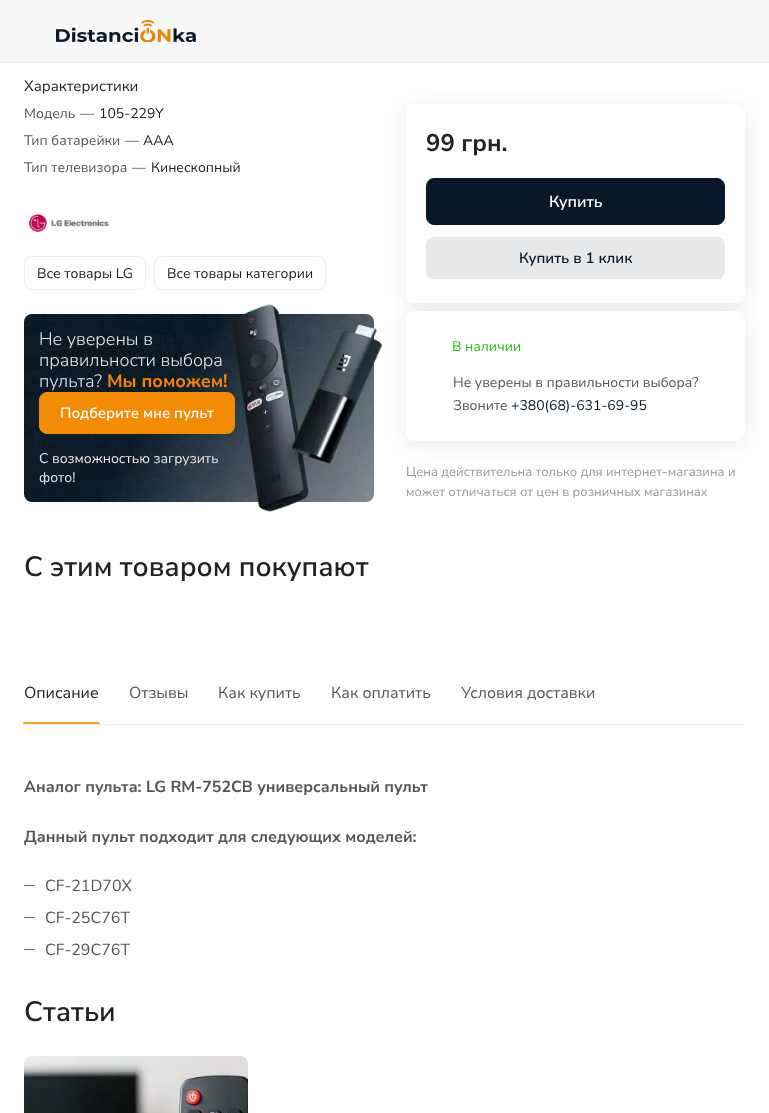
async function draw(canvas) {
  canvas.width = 769
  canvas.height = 1113
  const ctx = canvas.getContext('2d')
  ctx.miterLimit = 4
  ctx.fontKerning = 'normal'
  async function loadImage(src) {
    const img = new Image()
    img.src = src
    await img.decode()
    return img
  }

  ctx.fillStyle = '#fff'
  ctx.fillRect(0, 0, 769, 1113)
  ctx.fillStyle = '#ededed'
  ctx.fillRect(0, 62, 769, 1)
  ctx.fillStyle = '#f8f8f8'
  ctx.fillRect(0, 0, 769, 62)
  ctx.drawImage(await loadImage('image0.png'), 56, 20, 140, 22)
  ctx.font = '15px Nunito Sans'
  ctx.fillStyle = '#222'
  ctx.fillText('Характеристики', 24, 91)
  ctx.font = '14px Nunito Sans'
  ctx.fillStyle = '#555'
  ctx.fillText('Модель', 24, 118)
  ctx.fillText('—', 80, 118)
  ctx.fillStyle = '#222'
  ctx.fillText('105-229Y', 99, 118)
  ctx.fillStyle = '#555'
  ctx.fillText('Тип батарейки', 24, 145)
  ctx.fillText('—', 125, 145)
  ctx.fillStyle = '#222'
  ctx.fillText('AAA', 143, 145)
  ctx.fillStyle = '#555'
  ctx.fillText('Тип телевизора', 24, 172)
  ctx.fillText('—', 132, 172)
  ctx.fillStyle = '#222'
  ctx.fillText('Кинескопный', 151, 172)
  ctx.drawImage(await loadImage('image1.png'), 29, 214, 80, 18)
  ctx.beginPath()
  ctx.roundRect(24.5, 256.5, 121, 33, 7.5)
  ctx.strokeStyle = '#ededed'
  ctx.stroke()
  ctx.fillText('Все товары LG', 37, 278)
  ctx.beginPath()
  ctx.roundRect(154.5, 256.5, 171, 33, 7.5)
  ctx.stroke()
  ctx.fillText('Все товары категории', 167, 278)
  ctx.drawImage(await loadImage('image2.png'), 24, 314, 350, 188)
  ctx.font = '300 18px Nunito Sans'
  ctx.fillStyle = '#e7e7e7'
  ctx.fillText('Не уверены в', 39, 345)
  ctx.fillText('правильности выбора', 39, 366)
  ctx.fillText('пульта?', 39, 387)
  ctx.font = 'bold 18px Nunito Sans'
  ctx.fillStyle = '#ff8200'
  ctx.fillText('Мы поможем!', 107, 387)
  ctx.fillStyle = '#f38b04'
  ctx.beginPath()
  ctx.roundRect(39.5, 392.5, 195, 41, 7.5)
  ctx.fill()
  ctx.strokeStyle = '#f38b04'
  ctx.stroke()
  ctx.font = '600 15px Nunito Sans'
  ctx.fillStyle = '#fff'
  ctx.fillText('Подберите мне пульт', 60, 418)
  ctx.font = '14px Nunito Sans'
  ctx.fillStyle = '#e7e7e7'
  ctx.fillText('С возможностью загрузить', 39, 463)
  ctx.fillText('фото!', 39, 482)
  ctx.drawImage(await loadImage('image3.png'), 232, 304, 151, 208)
  ctx.fillStyle = '#2222221a'
  ctx.filter = 'blur(10px)'
  ctx.beginPath()
  ctx.roundRect(406, 107, 339, 199, 8)
  ctx.fill()
  ctx.filter = 'none'
  ctx.fillStyle = '#fff'
  ctx.beginPath()
  ctx.roundRect(406, 104, 339, 199, 8)
  ctx.fill()
  ctx.font = 'bold 24px Nunito Sans'
  ctx.fillStyle = '#222'
  ctx.fillText('99 грн.', 426, 151)
  ctx.fillStyle = '#081828'
  ctx.beginPath()
  ctx.roundRect(426.5, 178.5, 298, 46, 7.5)
  ctx.fill()
  ctx.strokeStyle = '#081828'
  ctx.stroke()
  ctx.font = '600 16px Nunito Sans'
  ctx.fillStyle = '#fff'
  ctx.fillText('Купить', 549, 207)
  ctx.fillStyle = '#e6e8e9'
  ctx.beginPath()
  ctx.roundRect(426, 237, 299, 42, 8)
  ctx.fill()
  ctx.font = '600 15px Nunito Sans'
  ctx.fillStyle = '#081828'
  ctx.fillText('Купить в 1 клик', 519, 263)
  ctx.fillStyle = '#2222221a'
  ctx.filter = 'blur(10px)'
  ctx.beginPath()
  ctx.roundRect(406, 314, 339, 130, 8)
  ctx.fill()
  ctx.filter = 'none'
  ctx.fillStyle = '#fff'
  ctx.beginPath()
  ctx.roundRect(406, 311, 339, 130, 8)
  ctx.fill()
  ctx.font = '14px Nunito Sans'
  ctx.fillStyle = '#2cbe15'
  ctx.fillText('В наличии', 452, 351)
  ctx.fillStyle = '#555'
  ctx.fillText('Не уверены в правильности выбора?', 453, 387)
  ctx.fillText('Звоните', 453, 410)
  ctx.fillStyle = '#081828'
  ctx.fillText('+380(68)-631-69-95', 511, 410)
  ctx.font = '13px Nunito Sans'
  ctx.fillStyle = '#999'
  ctx.fillText('Цена действительна только для интернет-магазина и', 406, 476)
  ctx.fillText('может отличаться от цен в розничных магазинах', 406, 496)
  ctx.font = '600 28px Nunito Sans'
  ctx.fillStyle = '#222'
  ctx.fillText('С этим товаром покупают', 24, 576)
  ctx.fillStyle = '#ededed'
  ctx.fillRect(24, 724, 721, 1)
  ctx.font = '16px Nunito Sans'
  ctx.fillStyle = '#222'
  ctx.fillText('Описание', 24, 698)
  ctx.fillStyle = '#fd9c12'
  ctx.beginPath()
  ctx.roundRect(23, 722, 77, 2, [2, 2, 0, 0])
  ctx.fill()
  ctx.fillStyle = '#555'
  ctx.fillText('Отзывы', 129, 698)
  ctx.fillText('Как купить', 218, 698)
  ctx.fillText('Как оплатить', 331, 698)
  ctx.fillText('Условия доставки', 461, 698)
  ctx.font = 'bold 16px Nunito Sans'
  ctx.fillText('Аналог пульта: LG RM-752CB универсальный пульт', 24, 792)
  ctx.fillText('Данный пульт подходит для следующих моделей:', 24, 842)
  ctx.fillStyle = '#666'
  ctx.fillRect(24, 885, 11, 1)
  ctx.font = '16px Nunito Sans'
  ctx.fillStyle = '#555'
  ctx.fillText('CF-21D70X', 45, 891)
  ctx.fillStyle = '#666'
  ctx.fillRect(24, 917, 11, 1)
  ctx.fillStyle = '#555'
  ctx.fillText('CF-25C76T', 45, 923)
  ctx.fillStyle = '#666'
  ctx.fillRect(24, 949, 11, 1)
  ctx.fillStyle = '#555'
  ctx.fillText('CF-29C76T', 45, 955)
  ctx.font = '600 28px Nunito Sans'
  ctx.fillStyle = '#222'
  ctx.fillText('Статьи', 24, 1021)
  ctx.drawImage(await loadImage('image4.png'), 24, 1056, 224, 57)
}

draw(document.querySelector('canvas'))
